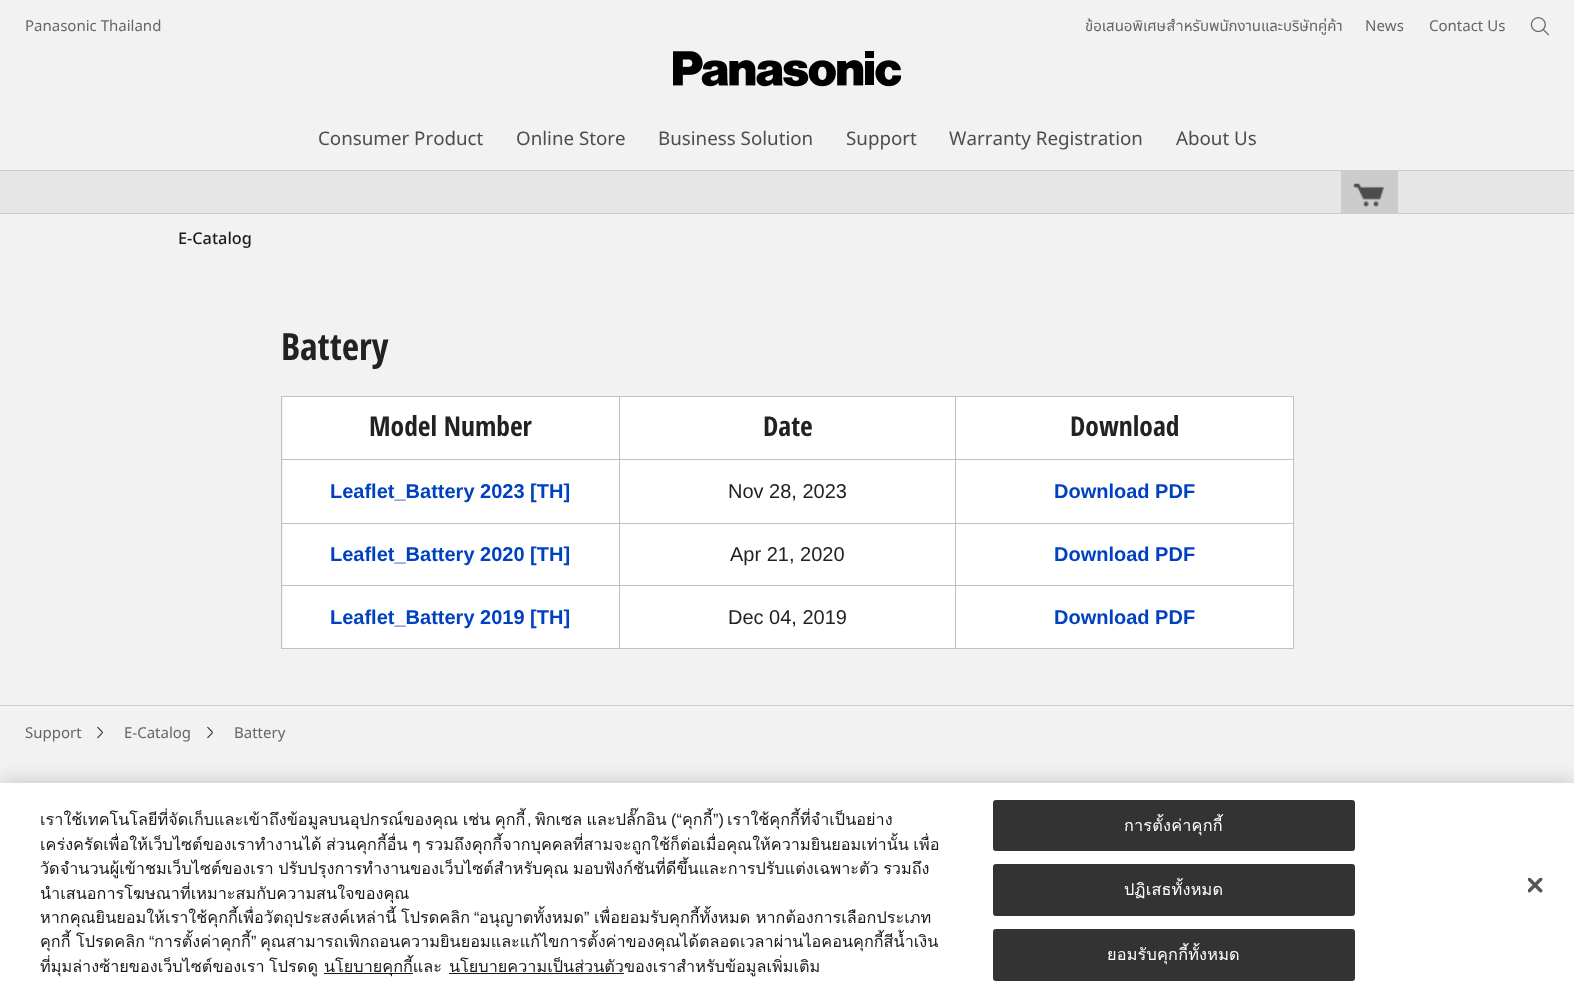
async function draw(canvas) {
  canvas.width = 1574
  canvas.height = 991
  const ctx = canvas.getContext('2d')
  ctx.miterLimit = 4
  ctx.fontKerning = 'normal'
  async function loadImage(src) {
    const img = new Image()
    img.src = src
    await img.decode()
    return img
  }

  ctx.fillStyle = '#f2f2f2'
  ctx.fillRect(0, 0, 1574, 991)
  ctx.font = '15px Noto Sans Thai'
  ctx.fillStyle = '#666'
  ctx.fillText('Panasonic Thailand', 25, 31)
  ctx.fillText('ข้อเสนอพิเศษสำหรับพนักงานและบริษัทคู่ค้า', 1085, 31)
  ctx.fillText('News', 1365, 31)
  ctx.fillText('Contact Us', 1429, 31)
  ctx.drawImage(await loadImage('image0.png'), 1530, 17, 19, 19)
  ctx.drawImage(await loadImage('image1.png'), 673, 51, 228, 36)
  ctx.font = '18.75px Noto Sans Thai'
  ctx.fillStyle = '#4d4d4d'
  ctx.fillText('Consumer Product', 318, 145)
  ctx.fillText('Online Store', 516, 145)
  ctx.fillText('Business Solution', 658, 145)
  ctx.fillText('Support', 846, 145)
  ctx.fillText('Warranty Registration', 949, 145)
  ctx.fillText('About Us', 1176, 145)
  ctx.fillStyle = '#e6e6e6'
  ctx.fillRect(0, 171, 1574, 42)
  ctx.fillStyle = '#ccc'
  ctx.fillRect(0, 170, 1574, 1)
  ctx.fillRect(1341, 171, 57, 42)
  ctx.drawImage(await loadImage('image2.png'), 1353, 183, 31, 24)
  ctx.fillRect(0, 213, 1574, 1)
  ctx.font = '500 16.25px Noto Sans Thai'
  ctx.fillStyle = '#1a1a1a'
  ctx.fillText('E-Catalog', 178, 244)
  ctx.font = 'bold 37.5px Open Sans Condensed'
  ctx.fillStyle = '#222'
  ctx.fillText('Battery', 281, 360)
  ctx.fillStyle = '#fff'
  ctx.fillRect(283, 397, 336, 62)
  ctx.fillStyle = '#c1c1c1'
  ctx.fillRect(955, 396, 339, 1)
  ctx.fillRect(955, 459, 339, 1)
  ctx.fillRect(955, 523, 339, 1)
  ctx.fillRect(955, 585, 339, 1)
  ctx.fillRect(1293, 585, 1, 64)
  ctx.fillRect(955, 648, 339, 1)
  ctx.fillRect(955, 585, 1, 64)
  ctx.fillRect(619, 585, 337, 1)
  ctx.fillRect(955, 523, 1, 63)
  ctx.fillRect(619, 523, 337, 1)
  ctx.fillRect(955, 459, 1, 65)
  ctx.fillRect(619, 459, 337, 1)
  ctx.fillRect(955, 396, 1, 64)
  ctx.fillRect(619, 396, 337, 1)
  ctx.fillRect(619, 648, 337, 1)
  ctx.fillRect(619, 585, 1, 64)
  ctx.fillRect(281, 585, 339, 1)
  ctx.fillRect(619, 523, 1, 63)
  ctx.fillRect(281, 523, 339, 1)
  ctx.fillRect(619, 459, 1, 65)
  ctx.fillRect(281, 459, 339, 1)
  ctx.fillRect(619, 396, 1, 64)
  ctx.fillRect(281, 396, 339, 1)
  ctx.fillRect(281, 648, 339, 1)
  ctx.fillRect(281, 585, 1, 64)
  ctx.fillRect(281, 523, 1, 63)
  ctx.fillRect(281, 459, 1, 65)
  ctx.fillRect(281, 396, 1, 64)
  ctx.font = 'bold 27.5px Open Sans Condensed'
  ctx.fillStyle = '#222'
  ctx.fillText('Model Number', 369, 436)
  ctx.fillStyle = '#fff'
  ctx.fillRect(620, 397, 335, 62)
  ctx.fillStyle = '#222'
  ctx.fillText('Date', 763, 436)
  ctx.fillStyle = '#fff'
  ctx.fillRect(956, 397, 337, 62)
  ctx.fillStyle = '#c1c1c1'
  ctx.fillRect(1293, 523, 1, 63)
  ctx.fillRect(1293, 459, 1, 65)
  ctx.fillRect(1293, 396, 1, 64)
  ctx.fillStyle = '#222'
  ctx.fillText('Download', 1070, 436)
  ctx.fillStyle = '#fff'
  ctx.fillRect(283, 460, 336, 63)
  ctx.font = 'bold 20px Liberation Sans'
  ctx.fillStyle = '#0041c0'
  ctx.fillText('Leaflet_Battery 2023 [TH]', 330, 498)
  ctx.fillStyle = '#fff'
  ctx.fillRect(620, 460, 335, 63)
  ctx.font = '20px Liberation Sans'
  ctx.fillStyle = '#222'
  ctx.fillText('Nov 28, 2023', 728, 498)
  ctx.fillStyle = '#fff'
  ctx.fillRect(956, 460, 337, 63)
  ctx.font = 'bold 20px Liberation Sans'
  ctx.fillStyle = '#0041c0'
  ctx.fillText('Download PDF', 1054, 498)
  ctx.fillStyle = '#fff'
  ctx.fillRect(283, 524, 336, 61)
  ctx.fillStyle = '#0041c0'
  ctx.fillText('Leaflet_Battery 2020 [TH]', 330, 561)
  ctx.fillStyle = '#fff'
  ctx.fillRect(620, 524, 335, 61)
  ctx.font = '20px Liberation Sans'
  ctx.fillStyle = '#222'
  ctx.fillText('Apr 21, 2020', 730, 561)
  ctx.fillStyle = '#fff'
  ctx.fillRect(956, 524, 337, 61)
  ctx.font = 'bold 20px Liberation Sans'
  ctx.fillStyle = '#0041c0'
  ctx.fillText('Download PDF', 1054, 561)
  ctx.fillStyle = '#fff'
  ctx.fillRect(283, 586, 336, 62)
  ctx.fillStyle = '#0041c0'
  ctx.fillText('Leaflet_Battery 2019 [TH]', 330, 624)
  ctx.fillStyle = '#fff'
  ctx.fillRect(620, 586, 335, 62)
  ctx.font = '20px Liberation Sans'
  ctx.fillStyle = '#222'
  ctx.fillText('Dec 04, 2019', 728, 624)
  ctx.fillStyle = '#fff'
  ctx.fillRect(956, 586, 337, 62)
  ctx.font = 'bold 20px Liberation Sans'
  ctx.fillStyle = '#0041c0'
  ctx.fillText('Download PDF', 1054, 624)
  ctx.fillStyle = '#ccc'
  ctx.fillRect(0, 705, 1574, 1)
  ctx.font = '15px Noto Sans Thai'
  ctx.fillStyle = '#666'
  ctx.fillText('Support', 25, 738)
  ctx.drawImage(await loadImage('image3.png'), 97, 726, 6, 13)
  ctx.fillText('E-Catalog', 124, 738)
  ctx.drawImage(await loadImage('image3.png'), 207, 726, 6, 13)
  ctx.fillText('Battery', 234, 738)
  ctx.fillStyle = '#00000033'
  ctx.filter = 'blur(11px)'
  ctx.beginPath()
  ctx.rect(0, 783, 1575, 208)
  ctx.fill()
  ctx.filter = 'none'
  ctx.fillStyle = '#fff'
  ctx.fillRect(0, 783, 1574, 208)
  ctx.wordSpacing = '-1px'
  ctx.font = '16.25px Loma'
  ctx.fillStyle = '#1a1a1a'
  ctx.fillText('เราใช้เทคโนโลยีที่จัดเก็บและเข้าถึงข้อมูลบนอุปกรณ์ของคุณ เช่น คุกกี้', 40, 825)
  ctx.wordSpacing = '0px'
  ctx.font = '16.25px Liberation Sans'
  ctx.fillText(',', 527, 825)
  ctx.wordSpacing = '-1px'
  ctx.font = '16.25px Loma'
  ctx.fillText('พิกเซล และปลั๊กอิน', 535, 825)
  ctx.wordSpacing = '0px'
  ctx.font = '16.25px Liberation Sans'
  ctx.fillText('(“', 671, 825)
  ctx.save()
  ctx.beginPath()
  ctx.rect(40, 808, 905, 171)
  ctx.clip()
  ctx.font = '16.25px Loma'
  ctx.fillText('คุกกี้', 682, 825)
  ctx.restore()
  ctx.fillText('”)', 713, 825)
  ctx.font = '16.25px Loma'
  ctx.fillText('เราใช้คุกกี้ที่จำเป็นอย่าง', 727, 825)
  ctx.wordSpacing = '-1px'
  ctx.fillText('เคร่งครัดเพื่อให้เว็บไซต์ของเราทำงานได้ ส่วนคุกกี้อื่น ๆ รวมถึงคุกกี้จากบุคคลที่สามจะถูกใช้ก็ต่อเมื่อคุณให้ความยินยอมเท่านั้น เพื่อ', 40, 850)
  ctx.save()
  ctx.beginPath()
  ctx.rect(40, 808, 905, 171)
  ctx.clip()
  ctx.fillText('วัดจำนวนผู้เข้าชมเว็บไซต์ของเรา ปรับปรุงการทำงานของเว็บไซต์สำหรับคุณ มอบฟังก์ชันที่ดีขึ้นและการปรับแต่งเฉพาะตัว รวมถึง', 40, 874)
  ctx.wordSpacing = '0px'
  ctx.fillText('นำเสนอการโฆษณาที่เหมาะสมกับความสนใจของคุณ', 40, 899)
  ctx.restore()
  ctx.wordSpacing = '0px'
  ctx.fillText('หากคุณยินยอมให้เราใช้คุกกี้เพื่อวัตถุประสงค์เหล่านี้', 40, 923)
  ctx.fillText('โปรดคลิก', 401, 923)
  ctx.font = '16.25px Liberation Sans'
  ctx.fillText('“', 474, 923)
  ctx.font = '16.25px Loma'
  ctx.fillText('อนุญาตทั้งหมด', 479, 923)
  ctx.font = '16.25px Liberation Sans'
  ctx.fillText('”', 584, 923)
  ctx.font = '16.25px Loma'
  ctx.fillText('เพื่อยอมรับคุกกี้ทั้งหมด หากต้องการเลือกประเภท', 594, 923)
  ctx.save()
  ctx.beginPath()
  ctx.rect(40, 808, 905, 171)
  ctx.clip()
  ctx.fillText('คุกกี้ โปรดคลิก', 40, 947)
  ctx.restore()
  ctx.font = '16.25px Liberation Sans'
  ctx.fillText('“', 149, 947)
  ctx.font = '16.25px Loma'
  ctx.fillText('การตั้งค่าคุกกี้', 154, 947)
  ctx.font = '16.25px Liberation Sans'
  ctx.fillText('”', 251, 947)
  ctx.font = '16.25px Loma'
  ctx.fillText('คุณสามารถเพิกถอนความยินยอมและแก้ไขการตั้งค่าของคุณได้ตลอดเวลาผ่านไอคอนคุกกี้สีน้ำเงิน', 260, 947)
  ctx.save()
  ctx.beginPath()
  ctx.rect(40, 808, 905, 171)
  ctx.clip()
  ctx.wordSpacing = '-1px'
  ctx.fillText('ที่มุมล่างซ้ายของเว็บไซต์ของเรา โปรดดู', 40, 972)
  ctx.restore()
  ctx.fillRect(324, 973, 89, 1)
  ctx.fillText('นโยบายคุกกี้และ', 324, 972)
  ctx.fillRect(449, 973, 175, 1)
  ctx.fillText('นโยบายความเป็นส่วนตัวของเราสำหรับข้อมูลเพิ่มเติม', 449, 972)
  ctx.fillStyle = '#333'
  ctx.beginPath()
  ctx.roundRect(993.5, 800.5, 361, 50, 2)
  ctx.fill()
  ctx.strokeStyle = '#333'
  ctx.stroke()
  ctx.letterSpacing = '0.2px'
  ctx.fillStyle = '#fff'
  ctx.fillText('การตั้งค่าคุกกี้', 1124, 831)
  ctx.fillStyle = '#333'
  ctx.beginPath()
  ctx.roundRect(993.5, 864.5, 361, 51, 2)
  ctx.fill()
  ctx.stroke()
  ctx.fillStyle = '#fff'
  ctx.fillText('ปฏิเสธทั้งหมด', 1124, 895)
  ctx.fillStyle = '#333'
  ctx.beginPath()
  ctx.roundRect(993.5, 929.5, 361, 51, 2)
  ctx.fill()
  ctx.stroke()
  ctx.fillStyle = '#fff'
  ctx.fillText('ยอมรับคุกกี้ทั้งหมด', 1107, 960)
  ctx.drawImage(await loadImage('image4.png'), 1528, 878, 15, 15)
}

draw(document.querySelector('canvas'))
